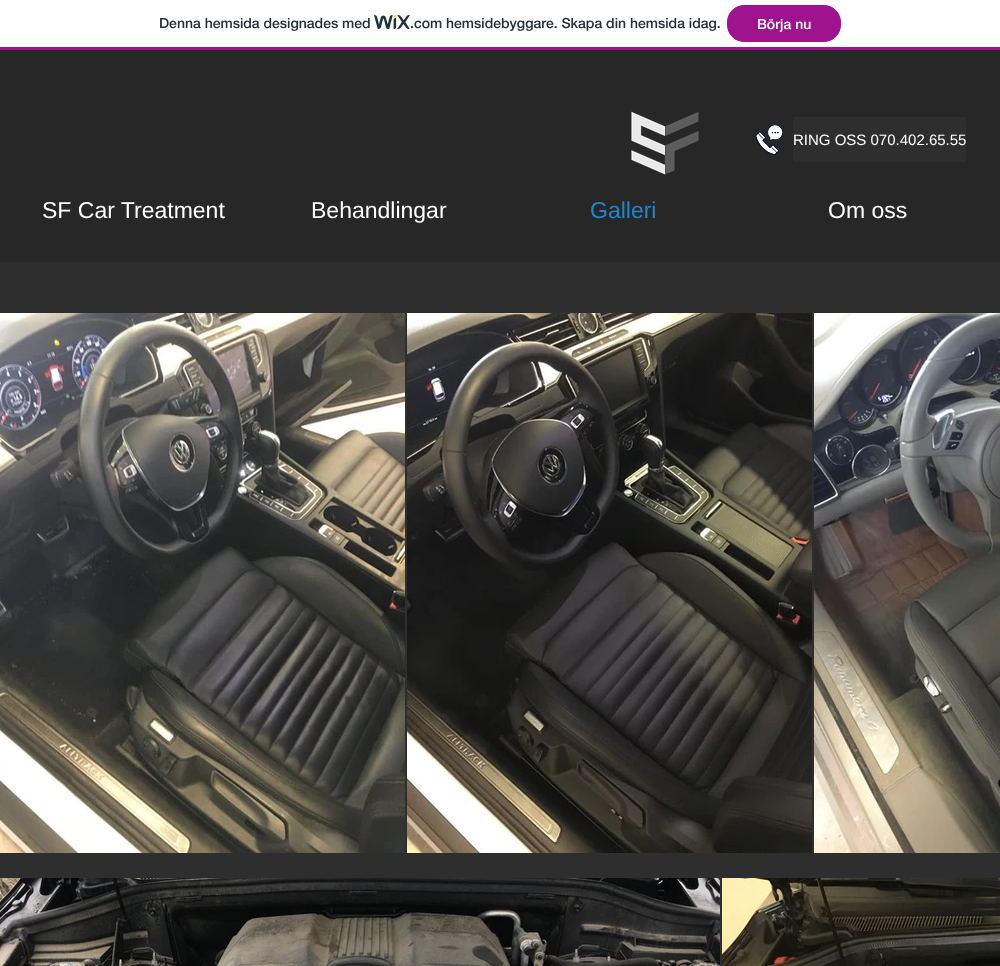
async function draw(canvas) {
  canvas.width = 1000
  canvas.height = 966
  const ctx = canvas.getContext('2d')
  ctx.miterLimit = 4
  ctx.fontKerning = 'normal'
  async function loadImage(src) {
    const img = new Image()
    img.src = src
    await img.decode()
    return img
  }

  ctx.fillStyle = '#fff'
  ctx.fillRect(0, 0, 1000, 966)
  ctx.fillStyle = '#a0138e'
  ctx.fillRect(0, 47, 1000, 3)
  ctx.font = '500 14px "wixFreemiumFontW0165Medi"'
  ctx.fillStyle = '#20303c'
  ctx.fillText('Denna hemsida designades med', 159, 28)
  ctx.drawImage(await loadImage('image0.png'), 374, 15, 36, 15)
  ctx.fillText('.com hemsidebyggare. Skapa din hemsida idag.', 410, 28)
  ctx.fillStyle = '#a0138e'
  ctx.beginPath()
  ctx.roundRect(727.5, 5.5, 113, 36, 16.5)
  ctx.fill()
  ctx.strokeStyle = '#a0138e'
  ctx.stroke()
  ctx.fillStyle = '#fff'
  ctx.fillText('Börja nu', 757, 29)
  ctx.fillStyle = '#282727'
  ctx.fillRect(0, 50, 1000, 212)
  ctx.drawImage(await loadImage('image1.png'), 631, 111, 68, 64)
  ctx.drawImage(await loadImage('image2.png'), 755, 124, 28, 31)
  ctx.fillStyle = '#2e2e2e'
  ctx.fillRect(793, 117, 173, 45)
  ctx.font = '15px Liberation Sans'
  ctx.fillStyle = '#fff'
  ctx.fillText('RING OSS 070.402.65.55', 793, 145)
  ctx.font = '23px Liberation Sans'
  ctx.fillText('SF Car Treatment', 42, 218)
  ctx.fillText('Behandlingar', 311, 218)
  ctx.fillStyle = '#2086ce'
  ctx.fillText('Galleri', 590, 218)
  ctx.fillStyle = '#fff'
  ctx.fillText('Om oss', 828, 218)
  ctx.fillStyle = '#2f2e2e'
  ctx.fillRect(0, 262, 1000, 704)
  ctx.drawImage(await loadImage('image3.png'), 0, 313, 405, 540)
  ctx.drawImage(await loadImage('image4.png'), 407, 313, 405, 540)
  ctx.drawImage(await loadImage('image5.png'), 814, 313, 186, 540)
  ctx.drawImage(await loadImage('image6.png'), 0, 878, 720, 88)
  ctx.drawImage(await loadImage('image7.png'), 722, 878, 278, 88)
}

draw(document.querySelector('canvas'))
